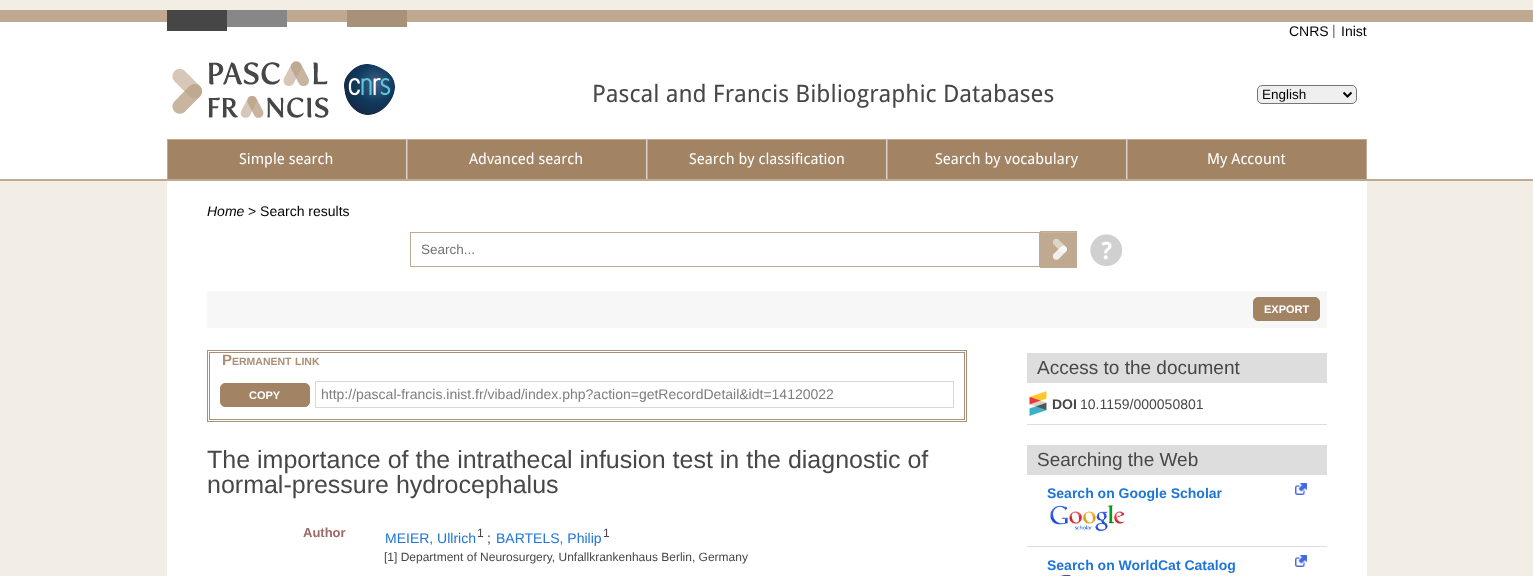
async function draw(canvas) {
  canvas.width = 1533
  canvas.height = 576
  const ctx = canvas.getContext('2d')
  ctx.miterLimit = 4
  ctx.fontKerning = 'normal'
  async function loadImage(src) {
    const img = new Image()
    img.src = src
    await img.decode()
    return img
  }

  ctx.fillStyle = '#f2ede5'
  ctx.fillRect(0, 0, 1533, 576)
  ctx.fillStyle = '#fff'
  ctx.fillRect(0, 22, 1533, 157)
  ctx.fillStyle = '#bfa991'
  ctx.fillRect(0, 10, 1533, 12)
  ctx.fillRect(0, 179, 1533, 2)
  ctx.drawImage(await loadImage('image0.png'), 167, 10, 240, 21)
  ctx.font = '14px Liberation Sans'
  ctx.fillStyle = '#000'
  ctx.fillText('CNRS', 1289, 36)
  ctx.fillStyle = '#696969'
  ctx.fillText('|', 1332, 35)
  ctx.fillStyle = '#000'
  ctx.fillText('Inist', 1341, 36)
  ctx.drawImage(await loadImage('image1.png'), 172, 61, 157, 57)
  ctx.drawImage(await loadImage('image2.png'), 344, 64, 51, 51)
  ctx.font = '24px Droid Sans'
  ctx.fillStyle = '#474747'
  ctx.fillText('Pascal and Francis Bibliographic Databases', 592, 102)
  ctx.fillStyle = '#efefef'
  ctx.beginPath()
  ctx.roundRect(1257.5, 85.5, 99, 18, 4.5)
  ctx.fill()
  ctx.strokeStyle = '#767676'
  ctx.stroke()
  ctx.beginPath()
  ctx.moveTo(1343.5, 92.5)
  ctx.lineTo(1347.5, 96.5)
  ctx.lineTo(1351.5, 92.5)
  ctx.strokeStyle = '#000'
  ctx.lineWidth = 2
  ctx.stroke()
  ctx.font = '13.5px Liberation Sans'
  ctx.fillStyle = '#000'
  ctx.fillText('English', 1262, 99)
  ctx.fillStyle = '#a28464'
  ctx.fillRect(168, 140, 1198, 39)
  ctx.fillStyle = '#bfa991'
  ctx.fillRect(167, 139, 1200, 1)
  ctx.fillStyle = '#d9d4d3'
  ctx.fillRect(406, 139, 1, 40)
  ctx.fillStyle = '#bfa991'
  ctx.fillRect(167, 139, 1, 40)
  ctx.font = '15px Droid Sans'
  ctx.fillStyle = '#fff'
  ctx.fillText('Simple search', 239, 164)
  ctx.fillStyle = '#d9d4d3'
  ctx.fillRect(646, 139, 1, 40)
  ctx.fillStyle = '#bfa991'
  ctx.fillRect(407, 139, 1, 40)
  ctx.fillStyle = '#fff'
  ctx.fillText('Advanced search', 469, 164)
  ctx.fillStyle = '#d9d4d3'
  ctx.fillRect(886, 139, 1, 40)
  ctx.fillStyle = '#bfa991'
  ctx.fillRect(647, 139, 1, 40)
  ctx.fillStyle = '#fff'
  ctx.fillText('Search by classification', 689, 164)
  ctx.fillStyle = '#d9d4d3'
  ctx.fillRect(1126, 139, 1, 40)
  ctx.fillStyle = '#bfa991'
  ctx.fillRect(887, 139, 1, 40)
  ctx.fillStyle = '#fff'
  ctx.fillText('Search by vocabulary', 935, 164)
  ctx.fillStyle = '#bfa991'
  ctx.fillRect(1366, 139, 1, 40)
  ctx.fillRect(1127, 139, 1, 40)
  ctx.fillStyle = '#fff'
  ctx.fillText('My Account', 1207, 164)
  ctx.fillRect(167, 181, 1200, 395)
  ctx.font = 'italic 14px Liberation Sans'
  ctx.fillStyle = '#000'
  ctx.fillText('Home', 207, 216)
  ctx.font = '14px Liberation Sans'
  ctx.fillText('> Search results', 248, 216)
  ctx.strokeStyle = '#bfa991'
  ctx.lineWidth = 1
  ctx.strokeRect(410.5, 232.5, 629, 34)
  ctx.font = '13.5px Liberation Sans'
  ctx.fillStyle = '#757575'
  ctx.fillText('Search...', 421, 254)
  ctx.drawImage(await loadImage('image3.png'), 1041, 232, 35, 35)
  ctx.strokeRect(1040.5, 231.5, 36, 36)
  ctx.drawImage(await loadImage('image4.png'), 1090, 234, 33, 33)
  ctx.fillStyle = '#f7f7f7'
  ctx.fillRect(207, 291, 1120, 37)
  ctx.fillStyle = '#a28464'
  ctx.beginPath()
  ctx.roundRect(1253.5, 297.5, 66, 23, 4.5)
  ctx.fill()
  ctx.strokeStyle = '#a28464'
  ctx.stroke()
  ctx.font = 'bold 11px Liberation Sans'
  ctx.fillStyle = '#fff'
  ctx.fillText('EXPORT', 1264, 313)
  ctx.strokeStyle = '#a89178'
  ctx.strokeRect(207.5, 350.5, 759, 71)
  ctx.strokeRect(209.5, 352.5, 755, 67)
  ctx.font = 'bold 15px Liberation Sans'
  ctx.fillStyle = '#a89178'
  ctx.fillText('P', 222, 365)
  ctx.font = 'bold 10.5px Liberation Sans'
  ctx.fillText('ERMANENT', 232, 365)
  ctx.fillText('LINK', 295, 365)
  ctx.fillStyle = '#a28464'
  ctx.beginPath()
  ctx.roundRect(220.5, 383.5, 89, 23, 4.5)
  ctx.fill()
  ctx.strokeStyle = '#a28464'
  ctx.stroke()
  ctx.font = 'bold 11px Liberation Sans'
  ctx.fillStyle = '#fff'
  ctx.fillText('COPY', 249, 399)
  ctx.strokeStyle = '#d8d8d8'
  ctx.strokeRect(315.5, 381.5, 638, 26)
  ctx.font = '14px Liberation Sans'
  ctx.fillStyle = '#7e7e80'
  ctx.fillText('http://pascal-francis.inist.fr/vibad/index.php?action=getRecordDetail&idt=14120022', 321, 399)
  ctx.font = '25px Liberation Sans'
  ctx.fillStyle = '#474747'
  ctx.fillText('The importance of the intrathecal infusion test in the diagnostic of', 207, 468)
  ctx.fillText('normal-pressure hydrocephalus', 207, 493)
  ctx.font = 'bold 13px Liberation Sans'
  ctx.fillStyle = '#9d6969'
  ctx.fillText('Author', 303, 537)
  ctx.font = '14px Liberation Sans'
  ctx.fillStyle = '#2076d8'
  ctx.fillText('MEIER, Ullrich', 385, 543)
  ctx.font = '12px Liberation Sans'
  ctx.fillStyle = '#474747'
  ctx.fillText('1', 477, 537)
  ctx.font = '14px Liberation Sans'
  ctx.fillText(';', 487, 543)
  ctx.fillStyle = '#2076d8'
  ctx.fillText('BARTELS, Philip', 496, 543)
  ctx.font = '12px Liberation Sans'
  ctx.fillStyle = '#474747'
  ctx.fillText('1', 603, 537)
  ctx.fillText('[1] Department of Neurosurgery, Unfallkrankenhaus Berlin, Germany', 384, 561)
  ctx.fillStyle = '#ddd'
  ctx.fillRect(1027, 353, 300, 30)
  ctx.font = '19px Liberation Sans'
  ctx.fillStyle = '#474747'
  ctx.fillText('Access to the document', 1037, 374)
  ctx.fillStyle = '#ddd'
  ctx.fillRect(1027, 424, 300, 1)
  ctx.drawImage(await loadImage('image5.png'), 1029, 391, 18, 25)
  ctx.font = 'bold 14px Liberation Sans'
  ctx.fillStyle = '#474747'
  ctx.fillText('DOI', 1052, 409)
  ctx.font = '14px Liberation Sans'
  ctx.fillText('10.1159/000050801', 1080, 409)
  ctx.fillStyle = '#ddd'
  ctx.fillRect(1027, 445, 300, 30)
  ctx.font = '19px Liberation Sans'
  ctx.fillStyle = '#474747'
  ctx.fillText('Searching the Web', 1037, 466)
  ctx.fillStyle = '#ddd'
  ctx.fillRect(1027, 546, 300, 1)
  ctx.drawImage(await loadImage('image6.png'), 1295, 483, 12, 12)
  ctx.font = 'bold 14px Liberation Sans'
  ctx.fillStyle = '#2076d8'
  ctx.fillText('Search on Google Scholar', 1047, 498)
  ctx.drawImage(await loadImage('image7.png'), 1050, 505, 75, 27)
  ctx.drawImage(await loadImage('image6.png'), 1295, 555, 12, 12)
  ctx.fillText('Search on WorldCat Catalog', 1047, 570)
  ctx.drawImage(await loadImage('image8.png'), 1052, 575, 19, 1)
}

draw(document.querySelector('canvas'))
